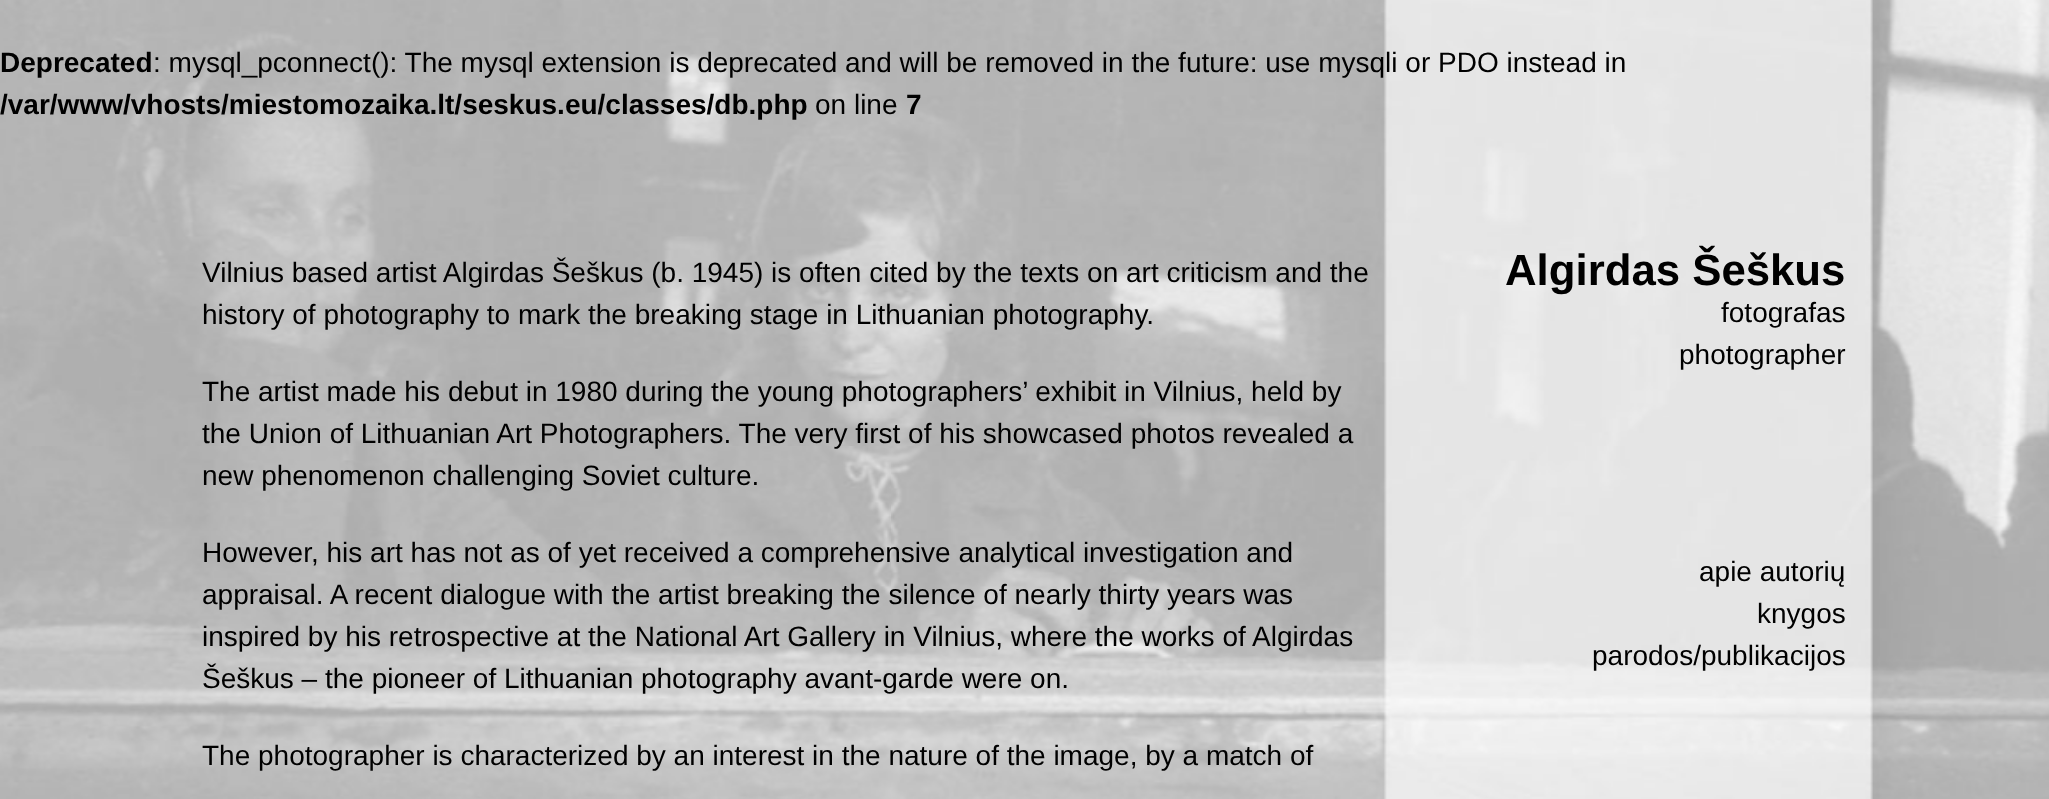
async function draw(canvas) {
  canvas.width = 2049
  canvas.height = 799
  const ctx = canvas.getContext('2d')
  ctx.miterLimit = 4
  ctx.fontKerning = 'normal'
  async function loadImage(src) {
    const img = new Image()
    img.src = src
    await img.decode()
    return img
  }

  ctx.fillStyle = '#fff'
  ctx.fillRect(0, 0, 2049, 799)
  ctx.drawImage(await loadImage('image0.png'), 0, 0, 2049, 799)
  ctx.font = 'bold 28px Liberation Sans'
  ctx.fillStyle = '#000'
  ctx.fillText('Deprecated', 0, 72)
  ctx.font = '28px Liberation Sans'
  ctx.fillText(': mysql_pconnect(): The mysql extension is deprecated and will be removed in the future: use mysqli or PDO instead in', 153, 72)
  ctx.font = 'bold 28px Liberation Sans'
  ctx.fillText('/var/www/vhosts/miestomozaika.lt/seskus.eu/classes/db.php', 0, 114)
  ctx.font = '28px Liberation Sans'
  ctx.fillText('on line', 815, 114)
  ctx.font = 'bold 28px Liberation Sans'
  ctx.fillText('7', 906, 114)
  ctx.font = '28px Liberation Sans'
  ctx.fillText('Vilnius based artist Algirdas Šeškus (b. 1945) is often cited by the texts on art criticism and the', 202, 282)
  ctx.fillText('history of photography to mark the breaking stage in Lithuanian photography.', 202, 324)
  ctx.fillText('The artist made his debut in 1980 during the young photographers’ exhibit in Vilnius, held by', 202, 401)
  ctx.fillText('the Union of Lithuanian Art Photographers. The very first of his showcased photos revealed a', 202, 443)
  ctx.fillText('new phenomenon challenging Soviet culture.', 202, 485)
  ctx.fillText('However, his art has not as of yet received a comprehensive analytical investigation and', 202, 562)
  ctx.fillText('appraisal. A recent dialogue with the artist breaking the silence of nearly thirty years was', 202, 604)
  ctx.fillText('inspired by his retrospective at the National Art Gallery in Vilnius, where the works of Algirdas', 202, 646)
  ctx.fillText('Šeškus – the pioneer of Lithuanian photography avant-garde were on.', 202, 688)
  ctx.fillText('The photographer is characterized by an interest in the nature of the image, by a match of', 202, 765)
  ctx.font = 'bold 43.75px Liberation Sans'
  ctx.fillText('Algirdas Šeškus', 1505, 285)
  ctx.font = '28px Liberation Sans'
  ctx.fillText('fotografas', 1721, 322)
  ctx.fillText('photographer', 1679, 364)
  ctx.fillText('apie autorių', 1699, 581)
  ctx.fillText('knygos', 1757, 623)
  ctx.fillText('parodos/publikacijos', 1592, 665)
}

draw(document.querySelector('canvas'))
